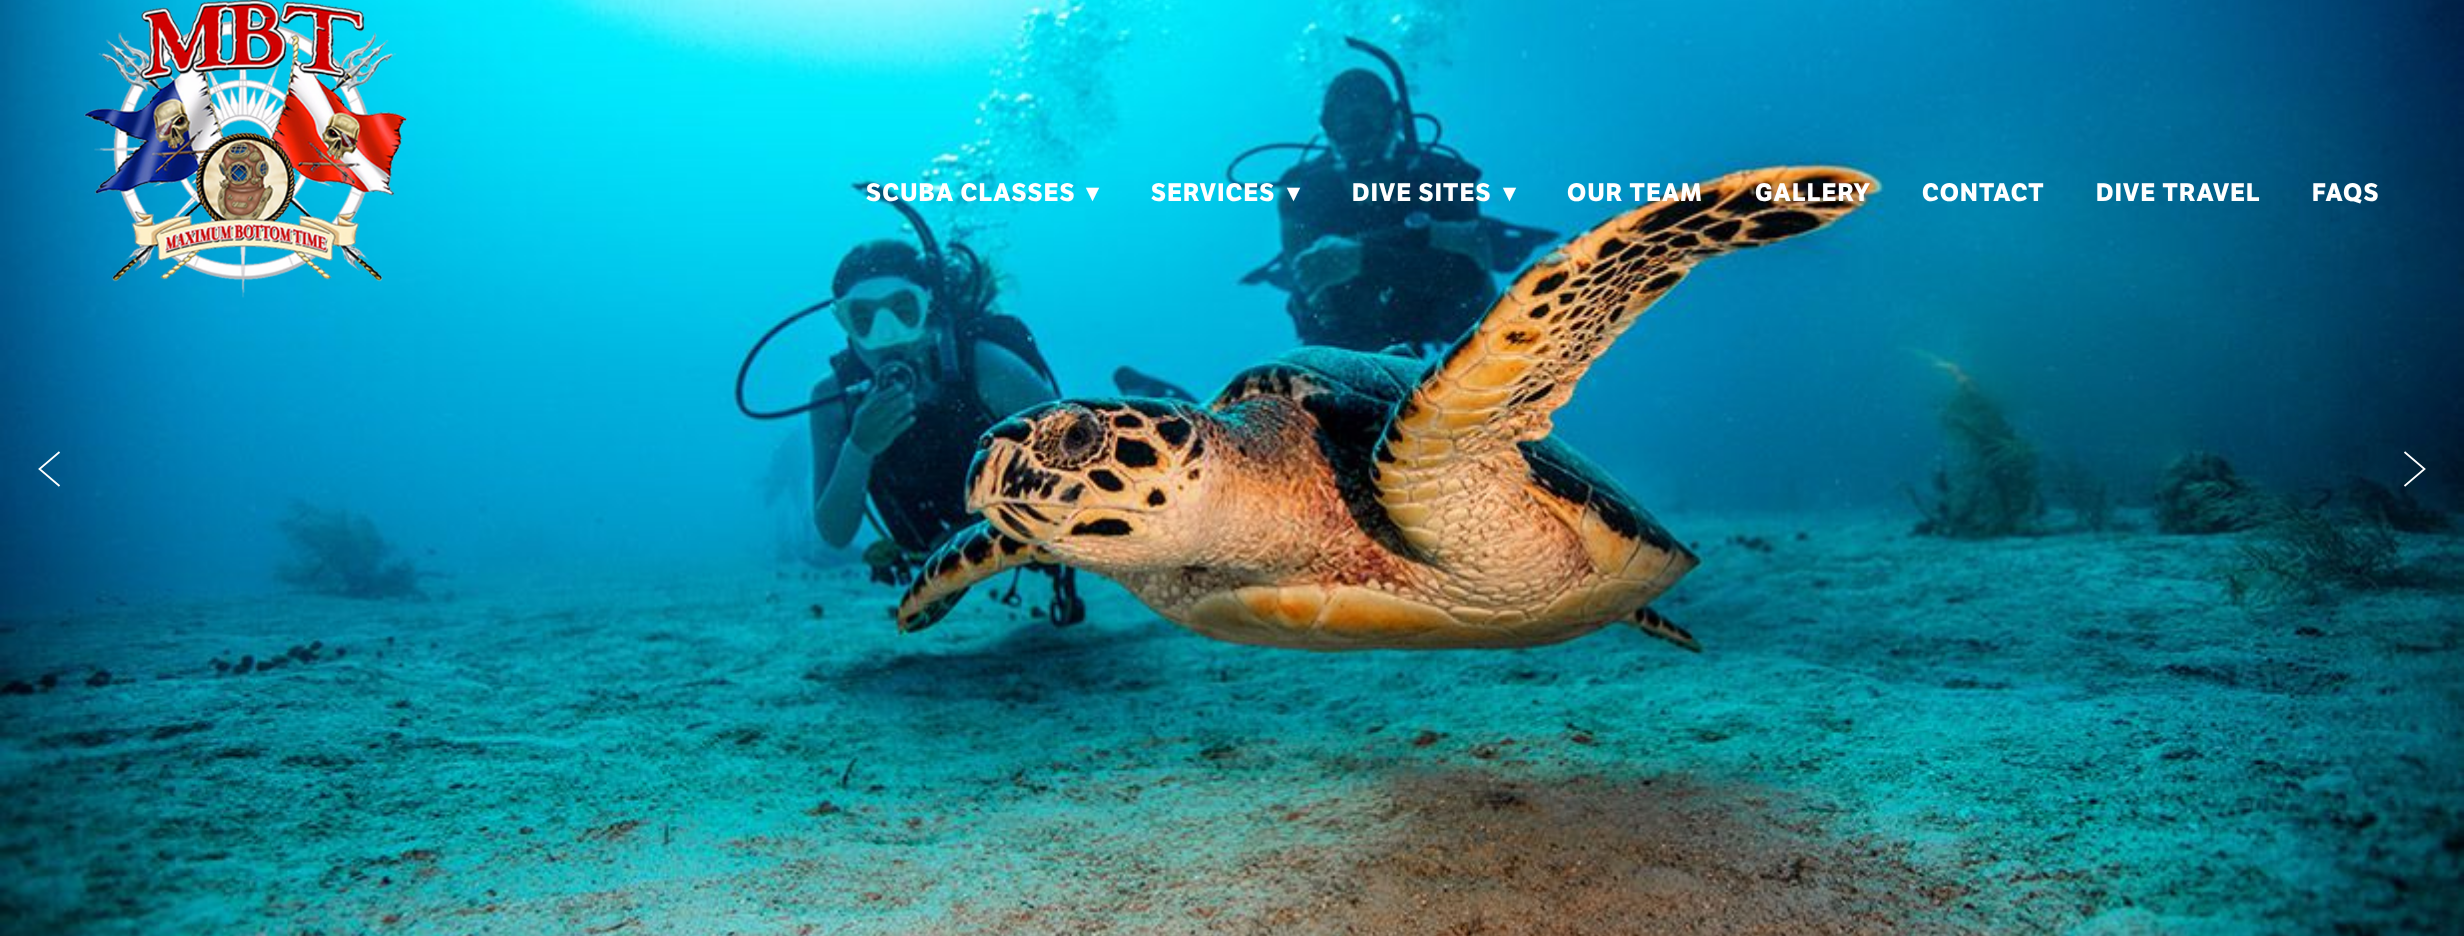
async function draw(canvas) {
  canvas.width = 2464
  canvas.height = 936
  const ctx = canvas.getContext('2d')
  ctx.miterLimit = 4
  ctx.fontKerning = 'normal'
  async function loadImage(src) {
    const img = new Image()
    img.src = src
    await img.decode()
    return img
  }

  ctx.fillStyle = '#fff'
  ctx.fillRect(0, 0, 2464, 936)
  ctx.drawImage(await loadImage('image0.png'), 0, 0, 2464, 936)
  ctx.beginPath()
  ctx.moveTo(59.5, 452)
  ctx.lineTo(39.5, 469)
  ctx.lineTo(59.5, 486)
  ctx.strokeStyle = '#fff'
  ctx.lineWidth = 1.8
  ctx.stroke()
  ctx.beginPath()
  ctx.moveTo(2404.5, 452)
  ctx.lineTo(2424.5, 469)
  ctx.lineTo(2404.5, 486)
  ctx.stroke()
  ctx.drawImage(await loadImage('image1.png'), 84, 0, 323, 298)
  ctx.letterSpacing = '1.25px'
  ctx.font = 'bold 24.5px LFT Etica'
  ctx.fillText('SCUBA CLASSES', 866, 201)
  ctx.font = 'bold 24.5px DejaVu Sans'
  ctx.fillText('▾', 1086, 201)
  ctx.font = 'bold 24.5px LFT Etica'
  ctx.fillText('SERVICES', 1151, 201)
  ctx.font = 'bold 24.5px DejaVu Sans'
  ctx.fillText('▾', 1287, 201)
  ctx.font = 'bold 24.5px LFT Etica'
  ctx.fillText('DIVE SITES', 1352, 201)
  ctx.font = 'bold 24.5px DejaVu Sans'
  ctx.fillText('▾', 1503, 201)
  ctx.font = 'bold 24.5px LFT Etica'
  ctx.fillText('OUR TEAM', 1567, 201)
  ctx.fillText('GALLERY', 1755, 201)
  ctx.fillText('CONTACT', 1922, 201)
  ctx.fillText('DIVE TRAVEL', 2096, 201)
  ctx.fillText('FAQS', 2312, 201)
}

draw(document.querySelector('canvas'))
